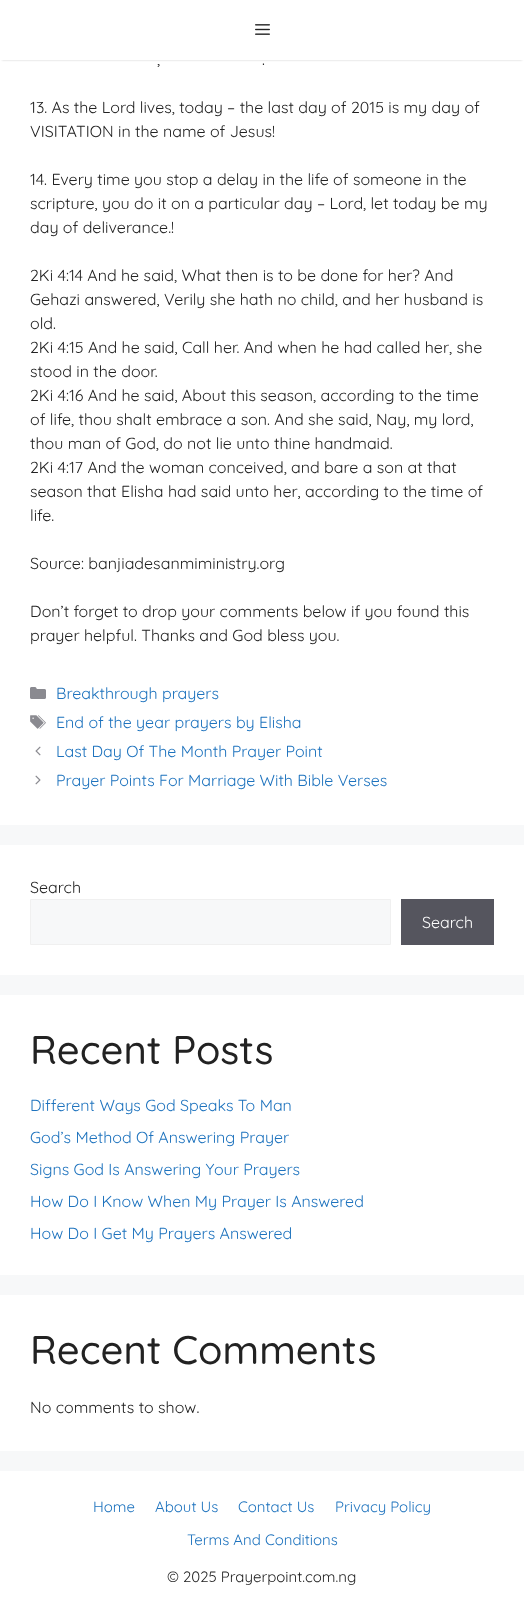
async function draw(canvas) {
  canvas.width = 524
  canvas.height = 1609
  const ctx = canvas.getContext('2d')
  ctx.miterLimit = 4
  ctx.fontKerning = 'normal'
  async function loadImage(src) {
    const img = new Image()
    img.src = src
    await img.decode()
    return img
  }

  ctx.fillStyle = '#f7f8f9'
  ctx.fillRect(0, 0, 524, 1609)
  ctx.fillStyle = '#fff'
  ctx.fillRect(0, 60, 524, 765)
  ctx.fillStyle = '#00000033'
  ctx.filter = 'blur(1px)'
  ctx.beginPath()
  ctx.rect(2, 4, 520, 56)
  ctx.fill()
  ctx.filter = 'none'
  ctx.fillStyle = '#fff'
  ctx.fillRect(0, 0, 524, 60)
  ctx.drawImage(await loadImage('image0.png'), 255, 24, 15, 11)
  ctx.font = '16px Quicksand'
  ctx.fillStyle = '#222'
  ctx.fillText(',', 157, 65)
  ctx.fillText('.', 262, 65)
  ctx.fillText('13. As the Lord lives, today – the last day of 2015 is my day of', 30, 113)
  ctx.fillText('VISITATION in the name of Jesus!', 30, 137)
  ctx.fillText('14. Every time you stop a delay in the life of someone in the', 30, 185)
  ctx.fillText('scripture, you do it on a particular day – Lord, let today be my', 30, 209)
  ctx.fillText('day of deliverance.!', 30, 233)
  ctx.fillText('2Ki 4:14 And he said, What then is to be done for her? And', 30, 281)
  ctx.fillText('Gehazi answered, Verily she hath no child, and her husband is', 30, 305)
  ctx.fillText('old.', 30, 329)
  ctx.fillText('2Ki 4:15 And he said, Call her. And when he had called her, she', 30, 353)
  ctx.fillText('stood in the door.', 30, 377)
  ctx.fillText('2Ki 4:16 And he said, About this season, according to the time', 30, 401)
  ctx.fillText('of life, thou shalt embrace a son. And she said, Nay, my lord,', 30, 425)
  ctx.fillText('thou man of God, do not lie unto thine handmaid.', 30, 449)
  ctx.fillText('2Ki 4:17 And the woman conceived, and bare a son at that', 30, 473)
  ctx.fillText('season that Elisha had said unto her, according to the time of', 30, 497)
  ctx.fillText('life.', 30, 521)
  ctx.fillText('Source: banjiadesanmiministry.org', 30, 569)
  ctx.fillText('Don’t forget to drop your comments below if you found this', 30, 617)
  ctx.fillText('prayer helpful. Thanks and God bless you.', 30, 641)
  ctx.drawImage(await loadImage('image1.png'), 30, 687, 16, 12)
  ctx.fillStyle = '#1e73be'
  ctx.fillText('Breakthrough prayers', 56, 699)
  ctx.drawImage(await loadImage('image2.png'), 30, 715, 16, 14)
  ctx.fillText('End of the year prayers by Elisha', 56, 728)
  ctx.drawImage(await loadImage('image3.png'), 35, 746, 6, 10)
  ctx.fillText('Last Day Of The Month Prayer Point', 56, 757)
  ctx.drawImage(await loadImage('image4.png'), 35, 775, 6, 10)
  ctx.fillText('Prayer Points For Marriage With Bible Verses', 56, 786)
  ctx.fillStyle = '#fff'
  ctx.fillRect(0, 845, 524, 130)
  ctx.fillStyle = '#222'
  ctx.fillText('Search', 30, 893)
  ctx.fillStyle = '#f7f8f9'
  ctx.beginPath()
  ctx.rect(30.5, 899.5, 360, 45)
  ctx.fill()
  ctx.strokeStyle = '#f0f0f0'
  ctx.stroke()
  ctx.fillStyle = '#55555e'
  ctx.fillRect(401, 899, 93, 46)
  ctx.fillStyle = '#fff'
  ctx.fillText('Search', 422, 928)
  ctx.fillRect(0, 995, 524, 280)
  ctx.font = '500 40px Quicksand'
  ctx.fillStyle = '#222'
  ctx.fillText('Recent Posts', 30, 1064)
  ctx.font = '16px Quicksand'
  ctx.fillStyle = '#1e73be'
  ctx.fillText('Different Ways God Speaks To Man', 30, 1111)
  ctx.fillText('God’s Method Of Answering Prayer', 30, 1143)
  ctx.fillText('Signs God Is Answering Your Prayers', 30, 1175)
  ctx.fillText('How Do I Know When My Prayer Is Answered', 30, 1207)
  ctx.fillText('How Do I Get My Prayers Answered', 30, 1239)
  ctx.fillStyle = '#fff'
  ctx.fillRect(0, 1295, 524, 156)
  ctx.font = '500 40px Quicksand'
  ctx.fillStyle = '#222'
  ctx.fillText('Recent Comments', 30, 1364)
  ctx.font = '16px Quicksand'
  ctx.fillText('No comments to show.', 30, 1413)
  ctx.fillStyle = '#fff'
  ctx.fillRect(0, 1471, 524, 138)
  ctx.font = '15px Quicksand'
  ctx.fillStyle = '#1e73be'
  ctx.fillText('Home', 93, 1512)
  ctx.fillText('About Us', 155, 1512)
  ctx.fillText('Contact Us', 238, 1512)
  ctx.fillText('Privacy Policy', 335, 1512)
  ctx.fillText('Terms And Conditions', 187, 1545)
  ctx.fillStyle = '#222'
  ctx.fillText('© 2025 Prayerpoint.com.ng', 167, 1582)
}

draw(document.querySelector('canvas'))
